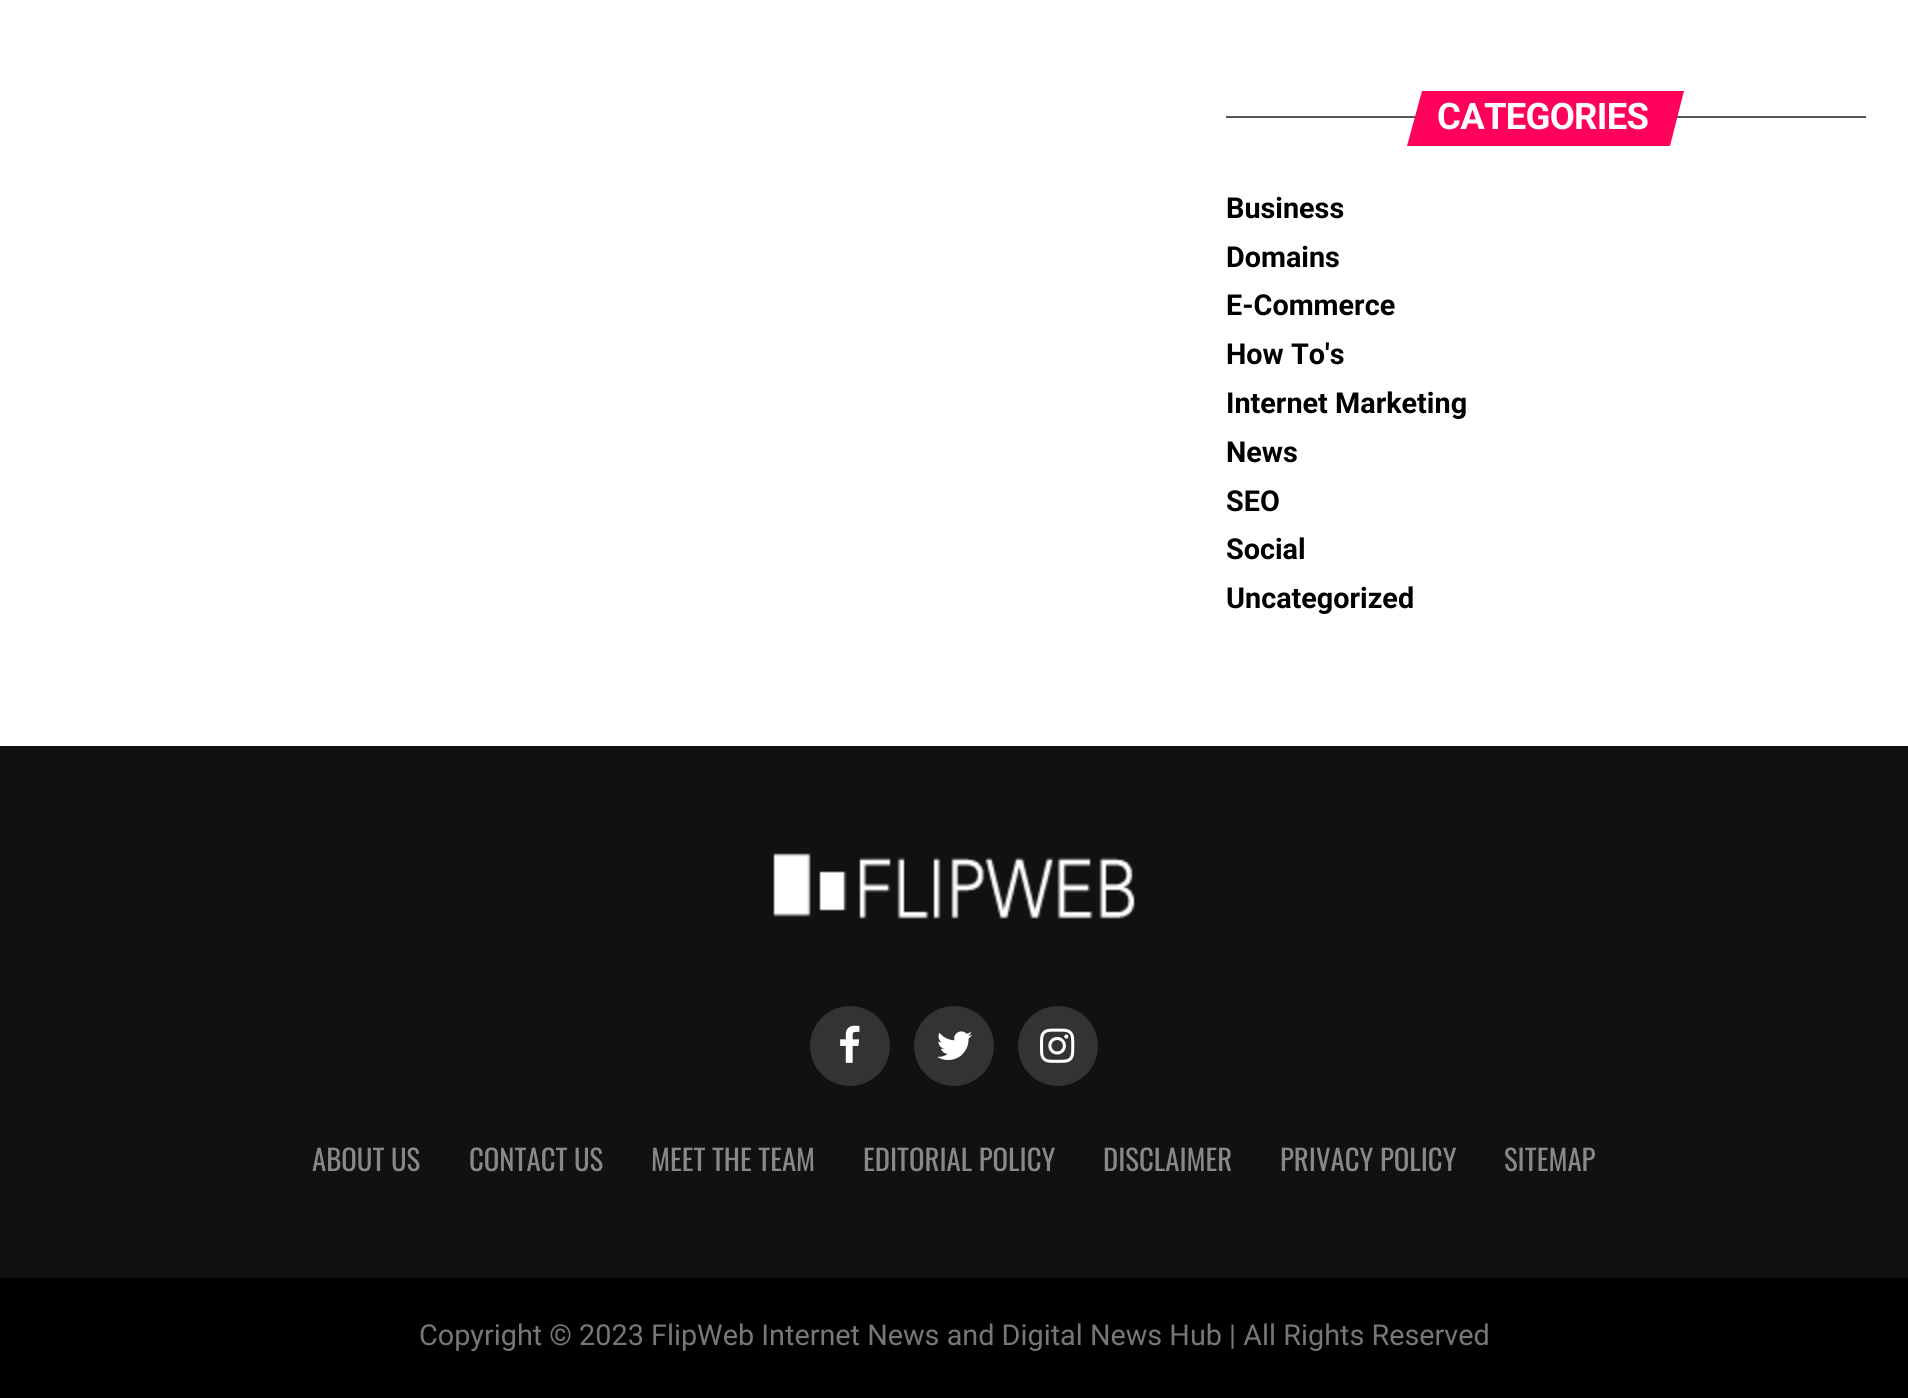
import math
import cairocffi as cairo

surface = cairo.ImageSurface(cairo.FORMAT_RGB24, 1908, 1398)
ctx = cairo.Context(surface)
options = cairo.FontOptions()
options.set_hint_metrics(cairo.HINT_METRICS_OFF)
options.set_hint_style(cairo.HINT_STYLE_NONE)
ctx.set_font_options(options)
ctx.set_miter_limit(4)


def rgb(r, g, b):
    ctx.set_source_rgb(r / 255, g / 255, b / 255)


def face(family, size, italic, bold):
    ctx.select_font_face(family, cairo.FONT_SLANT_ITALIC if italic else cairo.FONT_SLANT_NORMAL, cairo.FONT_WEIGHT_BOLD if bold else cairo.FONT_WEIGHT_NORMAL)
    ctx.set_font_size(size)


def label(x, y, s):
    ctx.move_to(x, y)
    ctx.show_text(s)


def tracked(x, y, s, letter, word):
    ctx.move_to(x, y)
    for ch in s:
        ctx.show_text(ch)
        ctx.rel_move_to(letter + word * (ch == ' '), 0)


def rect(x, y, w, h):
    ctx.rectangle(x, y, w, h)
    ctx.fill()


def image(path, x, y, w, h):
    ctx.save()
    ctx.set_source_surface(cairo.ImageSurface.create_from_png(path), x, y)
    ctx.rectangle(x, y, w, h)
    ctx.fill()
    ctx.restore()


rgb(255, 255, 255)
ctx.paint()
rgb(85, 85, 85)
rect(1226, 116, 640, 2)
rgb(255, 0, 91)
ctx.new_path()
ctx.move_to(1422, 91)
ctx.line_to(1684, 91)
ctx.line_to(1670, 146)
ctx.line_to(1407, 146)
ctx.close_path()
ctx.fill()
face('Roboto', 36.5, 0, 1)
rgb(255, 255, 255)
tracked(1437, 129, 'CATEGORIES', -0.75, 0)
face('Roboto', 28.8, 0, 1)
rgb(0, 0, 0)
label(1226, 218, 'Business')
label(1226, 267, 'Domains')
label(1226, 315, 'E-Commerce')
label(1226, 364, 'How To\'s')
label(1226, 413, 'Internet Marketing')
label(1226, 462, 'News')
label(1226, 511, 'SEO')
label(1226, 559, 'Social')
label(1226, 608, 'Uncategorized')
rgb(17, 17, 17)
rect(0, 746, 1908, 532)
image('image0.png', 773, 853, 362, 66)
rgb(51, 51, 51)
ctx.arc(850, 1046, 40, 0, 2 * math.pi)
ctx.fill()
image('image1.png', 840, 1025, 20, 38)
ctx.arc(954, 1046, 40, 0, 2 * math.pi)
ctx.fill()
image('image2.png', 937, 1031, 35, 29)
ctx.arc(1058, 1046, 40, 0, 2 * math.pi)
ctx.fill()
image('image3.png', 1040, 1028, 35, 35)
face('Oswald', 28.8, 0, 0)
rgb(136, 136, 136)
label(312, 1171, 'ABOUT US')
label(469, 1171, 'CONTACT US')
label(651, 1171, 'MEET THE TEAM')
label(863, 1171, 'EDITORIAL POLICY')
label(1103, 1171, 'DISCLAIMER')
label(1280, 1171, 'PRIVACY POLICY')
label(1504, 1171, 'SITEMAP')
rgb(0, 0, 0)
rect(0, 1278, 1908, 120)
face('Roboto', 28.8, 0, 0)
rgb(119, 119, 119)
label(419, 1345, 'Copyright © 2023 FlipWeb Internet News and Digital News Hub | All Rights Reserved')
surface.write_to_png('render.png')
